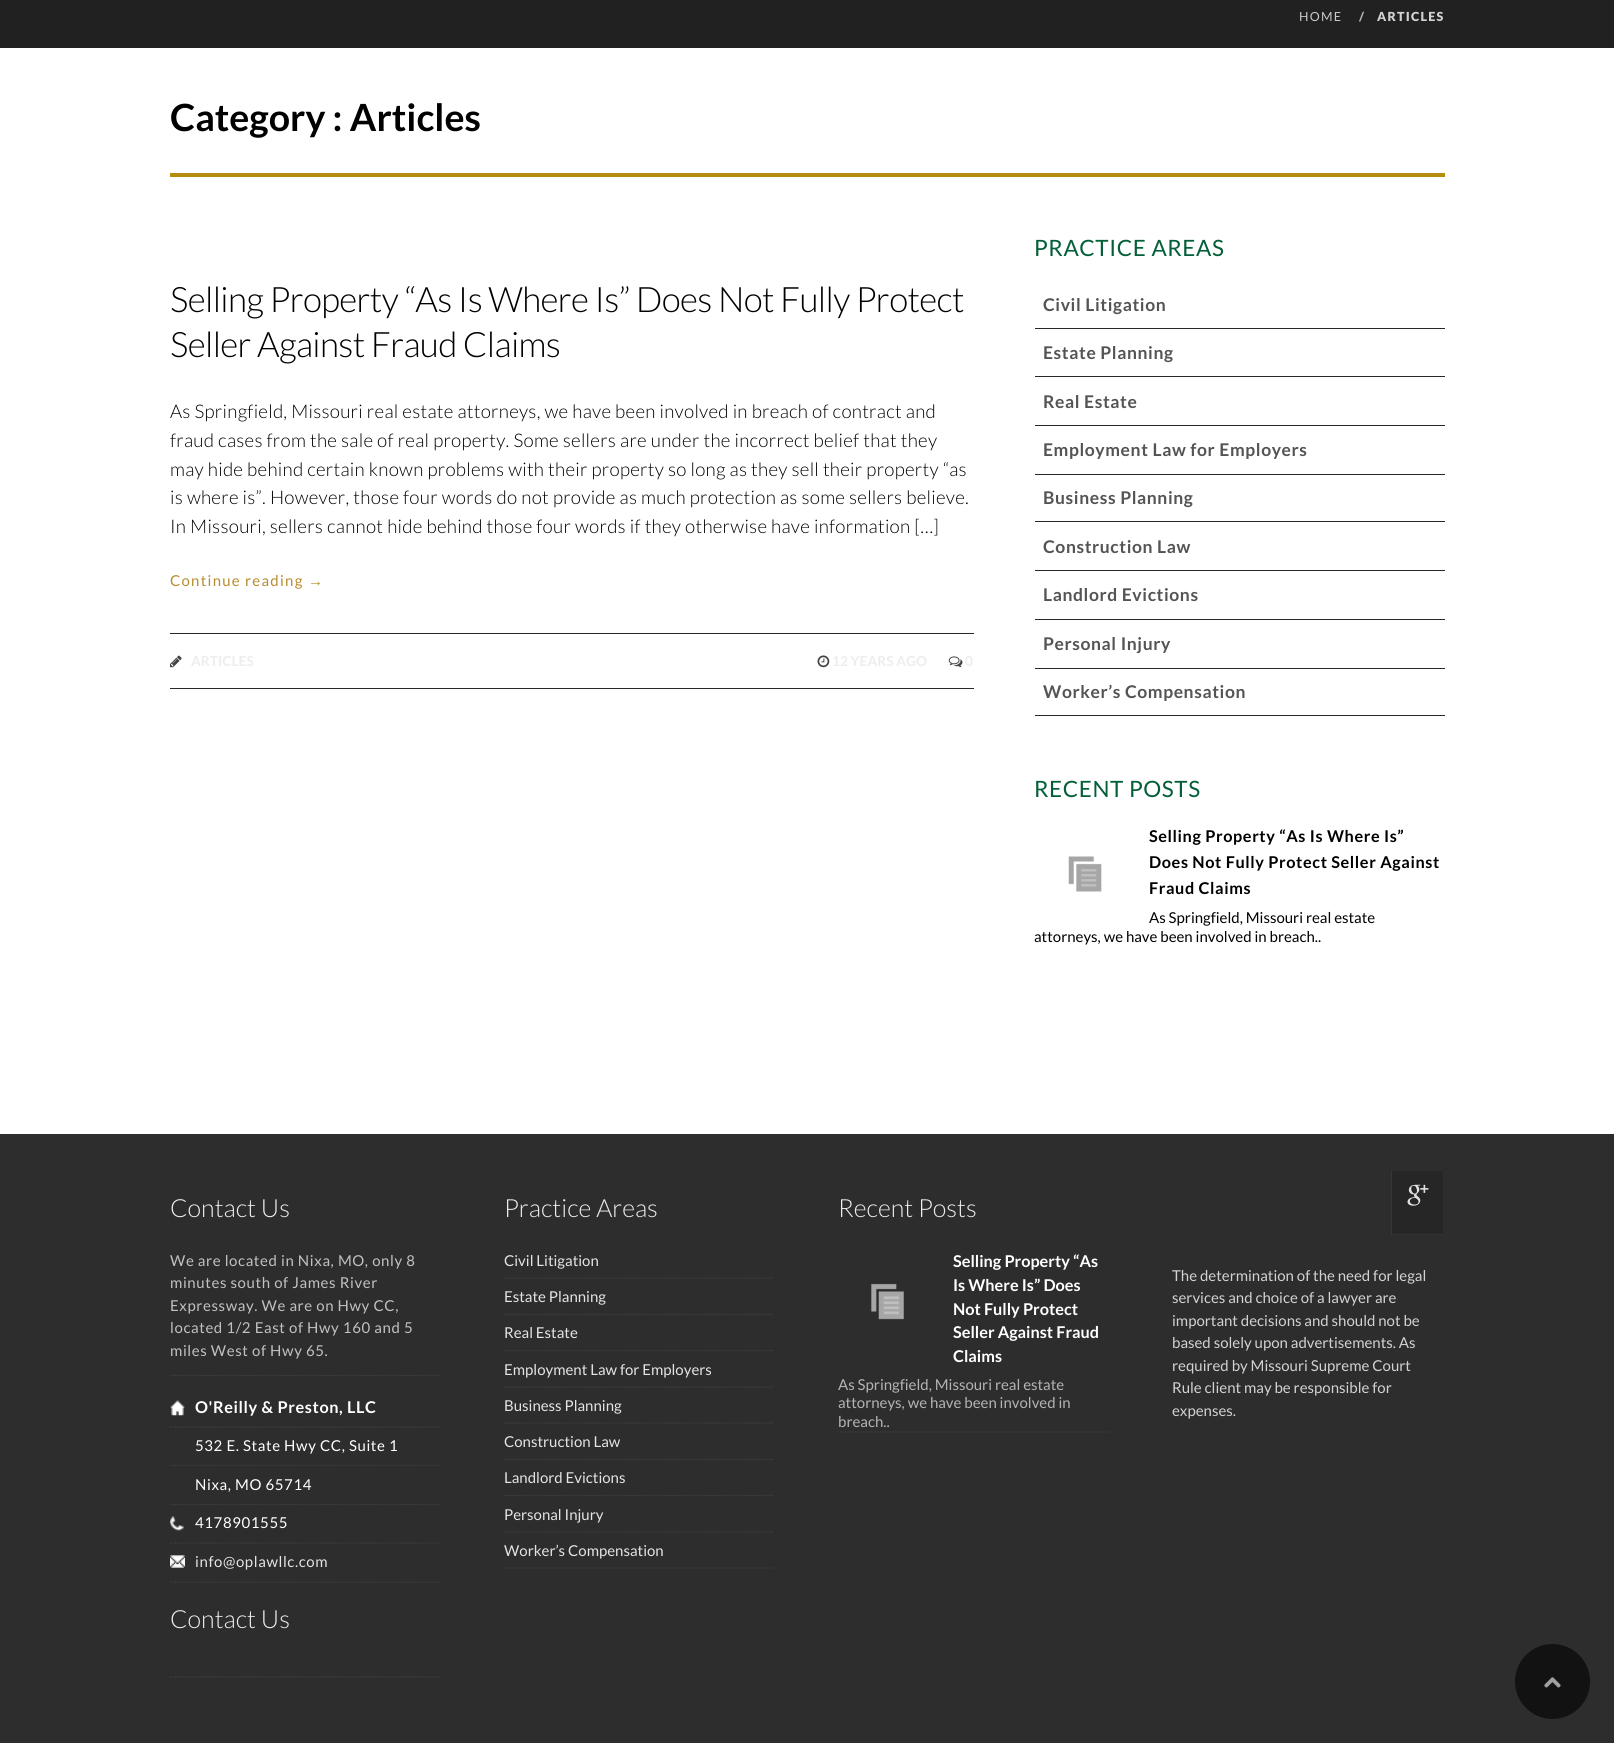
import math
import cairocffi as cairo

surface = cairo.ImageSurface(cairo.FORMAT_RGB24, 1614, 1743)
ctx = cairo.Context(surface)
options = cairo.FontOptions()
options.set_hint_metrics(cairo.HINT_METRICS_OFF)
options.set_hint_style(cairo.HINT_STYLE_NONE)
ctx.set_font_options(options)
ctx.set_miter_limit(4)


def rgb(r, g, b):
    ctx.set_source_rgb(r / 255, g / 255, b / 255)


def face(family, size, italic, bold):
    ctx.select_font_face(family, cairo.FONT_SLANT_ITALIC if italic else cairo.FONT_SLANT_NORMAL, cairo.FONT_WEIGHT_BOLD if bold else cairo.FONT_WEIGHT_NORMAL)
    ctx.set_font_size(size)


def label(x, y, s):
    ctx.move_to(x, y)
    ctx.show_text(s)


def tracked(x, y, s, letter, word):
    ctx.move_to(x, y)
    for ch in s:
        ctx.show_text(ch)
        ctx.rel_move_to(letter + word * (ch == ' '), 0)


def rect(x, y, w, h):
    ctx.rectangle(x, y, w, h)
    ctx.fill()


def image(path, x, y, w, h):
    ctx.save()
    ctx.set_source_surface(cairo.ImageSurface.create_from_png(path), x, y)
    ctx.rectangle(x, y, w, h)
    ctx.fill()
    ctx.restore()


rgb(255, 255, 255)
ctx.paint()
rgb(33, 33, 33)
rect(0, 0, 1614, 48)
face('Lato', 12.5, 0, 0)
rgb(201, 201, 201)
tracked(1299, 21, 'HOME', 1.25, 0)
face('Lato Black', 12.5, 0, 0)
rgb(180, 180, 180)
tracked(1359, 21, '/', 1.25, 0)
rgb(210, 210, 210)
tracked(1377, 21, 'ARTICLES', 1.25, 0)
rgb(182, 140, 14)
rect(170, 173, 1275, 4)
face('Lato', 37.5, 0, 1)
rgb(0, 0, 0)
label(170, 131, 'Category : Articles')
face('Lato Light', 35, 0, 0)
tracked(170, 312, 'Selling Property “As Is Where Is” Does Not Fully Protect', -0.62, 0)
tracked(170, 357, 'Seller Against Fraud Claims', -0.62, 0)
face('Lato Light', 18.75, 0, 0)
tracked(170, 418, 'As Springfield, Missouri real estate attorneys, we have been involved in breach of contract and', 0.25, 0)
tracked(170, 447, 'fraud cases from the sale of real property. Some sellers are under the incorrect belief that they', 0.25, 0)
tracked(170, 476, 'may hide behind certain known problems with their property so long as they sell their property “as', 0.25, 0)
tracked(170, 504, 'is where is”. However, those four words do not provide as much protection as some sellers believe.', 0.25, 0)
tracked(170, 533, 'In Missouri, sellers cannot hide behind those four words if they otherwise have information […]', 0.25, 0)
face('Lato', 15, 0, 0)
rgb(182, 140, 47)
tracked(170, 586, 'Continue reading', 1.25, 0)
face('Liberation Sans', 15, 0, 0)
tracked(308, 586, '→', 1.25, 0)
rgb(40, 40, 40)
rect(170, 633, 804, 1)
rect(170, 688, 804, 1)
image('image0.png', 170, 655, 12, 13)
face('Lato', 13.75, 0, 1)
rgb(237, 237, 237)
label(191, 666, 'ARTICLES')
image('image1.png', 817, 655, 13, 13)
label(832, 666, '12 YEARS AGO')
image('image2.png', 948, 656, 15, 12)
label(965, 666, '0')
face('Lato', 22.5, 0, 0)
rgb(3, 95, 56)
tracked(1034, 256, 'PRACTICE AREAS', 0.6, 0)
rgb(40, 40, 40)
rect(1035, 328, 410, 1)
face('Lato', 17.5, 0, 1)
rgb(84, 84, 84)
tracked(1043, 311, 'Civil Litigation', 0.6, 0)
rgb(40, 40, 40)
rect(1035, 376, 410, 1)
rgb(84, 84, 84)
tracked(1043, 359, 'Estate Planning', 0.6, 0)
rgb(40, 40, 40)
rect(1035, 425, 410, 1)
rgb(84, 84, 84)
tracked(1043, 408, 'Real Estate', 0.6, 0)
rgb(40, 40, 40)
rect(1035, 474, 410, 1)
rgb(84, 84, 84)
tracked(1043, 456, 'Employment Law for Employers', 0.6, 0)
rgb(40, 40, 40)
rect(1035, 521, 410, 1)
rgb(84, 84, 84)
tracked(1043, 504, 'Business Planning', 0.6, 0)
rgb(40, 40, 40)
rect(1035, 570, 410, 1)
rgb(84, 84, 84)
tracked(1043, 553, 'Construction Law', 0.6, 0)
rgb(40, 40, 40)
rect(1035, 619, 410, 1)
rgb(84, 84, 84)
tracked(1043, 601, 'Landlord Evictions', 0.6, 0)
rgb(40, 40, 40)
rect(1035, 668, 410, 1)
rgb(84, 84, 84)
tracked(1043, 650, 'Personal Injury', 0.6, 0)
rgb(40, 40, 40)
rect(1035, 715, 410, 1)
rgb(84, 84, 84)
tracked(1043, 698, 'Worker’s Compensation', 0.6, 0)
face('Lato', 22.5, 0, 0)
rgb(3, 95, 56)
tracked(1034, 797, 'RECENT POSTS', 0.6, 0)
face('Lato', 16.25, 0, 1)
rgb(0, 0, 0)
tracked(1149, 842, 'Selling Property “As Is Where Is”', 0.6, 0)
tracked(1149, 868, 'Does Not Fully Protect Seller Against', 0.6, 0)
tracked(1149, 894, 'Fraud Claims', 0.6, 0)
face('Lato', 15, 0, 0)
label(1149, 923, 'As Springfield, Missouri real estate')
label(1034, 942, 'attorneys, we have been involved in breach..')
image('image3.png', 1068, 856, 34, 36)
rgb(45, 45, 45)
rect(0, 1134, 1614, 609)
face('Lato Light', 25, 0, 0)
rgb(237, 237, 237)
label(170, 1217, 'Contact Us')
ctx.new_path()
ctx.move_to(170, 1375.5)
ctx.line_to(440, 1375.5)
rgb(64, 64, 64)
ctx.set_line_width(1.2)
ctx.set_dash([1.25, 1.25])
ctx.stroke()
face('Lato', 15, 0, 0)
rgb(193, 193, 193)
tracked(170, 1266, 'We are located in Nixa, MO, only 8', 0.6, 0)
tracked(170, 1288, 'minutes south of James River', 0.6, 0)
tracked(170, 1311, 'Expressway. We are on Hwy CC,', 0.6, 0)
tracked(170, 1333, 'located 1/2 East of Hwy 160 and 5', 0.6, 0)
tracked(170, 1356, 'miles West of Hwy 65.', 0.6, 0)
ctx.new_path()
ctx.move_to(170, 1427)
ctx.line_to(440, 1427)
rgb(64, 64, 64)
ctx.stroke()
image('image4.png', 170, 1400, 15, 16)
face('Lato', 16.25, 0, 1)
rgb(255, 255, 255)
tracked(195, 1413, 'O\'Reilly & Preston, LLC', 0.6, 0)
ctx.new_path()
ctx.move_to(170, 1465.5)
ctx.line_to(440, 1465.5)
rgb(64, 64, 64)
ctx.stroke()
face('Lato', 15, 0, 0)
rgb(255, 255, 255)
tracked(195, 1451, '532 E. State Hwy CC, Suite 1', 0.6, 0)
ctx.new_path()
ctx.move_to(170, 1504.5)
ctx.line_to(440, 1504.5)
rgb(64, 64, 64)
ctx.stroke()
rgb(255, 255, 255)
tracked(195, 1490, 'Nixa, MO 65714', 0.6, 0)
ctx.new_path()
ctx.move_to(170, 1543)
ctx.line_to(440, 1543)
rgb(64, 64, 64)
ctx.stroke()
image('image5.png', 170, 1516, 14, 15)
rgb(255, 255, 255)
tracked(195, 1528, '4178901555', 0.6, 0)
ctx.new_path()
ctx.move_to(170, 1582)
ctx.line_to(440, 1582)
rgb(64, 64, 64)
ctx.stroke()
image('image6.png', 170, 1555, 15, 13)
rgb(228, 228, 228)
tracked(195, 1567, 'info@oplawllc.com', 0.6, 0)
face('Lato Light', 25, 0, 0)
rgb(237, 237, 237)
label(170, 1628, 'Contact Us')
ctx.new_path()
ctx.move_to(170, 1677)
ctx.line_to(440, 1677)
rgb(64, 64, 64)
ctx.stroke()
rgb(237, 237, 237)
label(504, 1217, 'Practice Areas')
ctx.new_path()
ctx.move_to(504, 1278)
ctx.line_to(774, 1278)
rgb(64, 64, 64)
ctx.stroke()
face('Lato', 15, 0, 0)
rgb(228, 228, 228)
label(504, 1266, 'Civil Litigation')
ctx.new_path()
ctx.move_to(504, 1314.5)
ctx.line_to(774, 1314.5)
rgb(64, 64, 64)
ctx.stroke()
rgb(228, 228, 228)
label(504, 1302, 'Estate Planning')
ctx.new_path()
ctx.move_to(504, 1350.5)
ctx.line_to(774, 1350.5)
rgb(64, 64, 64)
ctx.stroke()
rgb(228, 228, 228)
label(504, 1338, 'Real Estate')
ctx.new_path()
ctx.move_to(504, 1387)
ctx.line_to(774, 1387)
rgb(64, 64, 64)
ctx.stroke()
rgb(228, 228, 228)
label(504, 1375, 'Employment Law for Employers')
ctx.new_path()
ctx.move_to(504, 1423)
ctx.line_to(774, 1423)
rgb(64, 64, 64)
ctx.stroke()
rgb(228, 228, 228)
label(504, 1411, 'Business Planning')
ctx.new_path()
ctx.move_to(504, 1459.5)
ctx.line_to(774, 1459.5)
rgb(64, 64, 64)
ctx.stroke()
rgb(228, 228, 228)
label(504, 1447, 'Construction Law')
ctx.new_path()
ctx.move_to(504, 1495.5)
ctx.line_to(774, 1495.5)
rgb(64, 64, 64)
ctx.stroke()
rgb(228, 228, 228)
label(504, 1483, 'Landlord Evictions')
ctx.new_path()
ctx.move_to(504, 1532)
ctx.line_to(774, 1532)
rgb(64, 64, 64)
ctx.stroke()
rgb(228, 228, 228)
label(504, 1520, 'Personal Injury')
ctx.new_path()
ctx.move_to(504, 1568)
ctx.line_to(774, 1568)
rgb(64, 64, 64)
ctx.stroke()
rgb(228, 228, 228)
label(504, 1556, 'Worker’s Compensation')
face('Lato Light', 25, 0, 0)
rgb(237, 237, 237)
label(838, 1217, 'Recent Posts')
ctx.new_path()
ctx.move_to(837.5, 1432)
ctx.line_to(1109, 1432)
rgb(64, 64, 64)
ctx.stroke()
face('Lato', 16.25, 0, 1)
rgb(255, 255, 255)
label(953, 1267, 'Selling Property “As')
label(953, 1291, 'Is Where Is” Does')
label(953, 1315, 'Not Fully Protect')
label(953, 1338, 'Seller Against Fraud')
label(953, 1362, 'Claims')
face('Lato', 15, 0, 0)
rgb(180, 180, 180)
label(838, 1390, 'As Springfield, Missouri real estate')
label(838, 1408, 'attorneys, we have been involved in')
label(838, 1427, 'breach..')
image('image7.png', 871, 1283, 33, 37)
rgb(38, 38, 38)
rect(1392, 1171, 51, 64)
ctx.new_path()
ctx.move_to(1391, 1234.5)
ctx.line_to(1442.5, 1234.5)
rgb(64, 64, 64)
ctx.stroke()
rgb(55, 55, 55)
rect(1391, 1171, 1, 64)
image('image8.png', 1407, 1184, 22, 22)
rgb(210, 210, 210)
label(1172, 1281, 'The determination of the need for legal')
label(1172, 1303, 'services and choice of a lawyer are')
label(1172, 1326, 'important decisions and should not be')
label(1172, 1348, 'based solely upon advertisements. As')
label(1172, 1371, 'required by Missouri Supreme Court')
label(1172, 1393, 'Rule client may be responsible for')
label(1172, 1416, 'expenses.')
rgb(18, 18, 18)
ctx.new_path()
ctx.arc(1552.5, 1681.5, 37.5, 0, 2 * math.pi)
ctx.fill()
image('image9.png', 1544, 1677, 17, 11)
surface.write_to_png('render.png')
